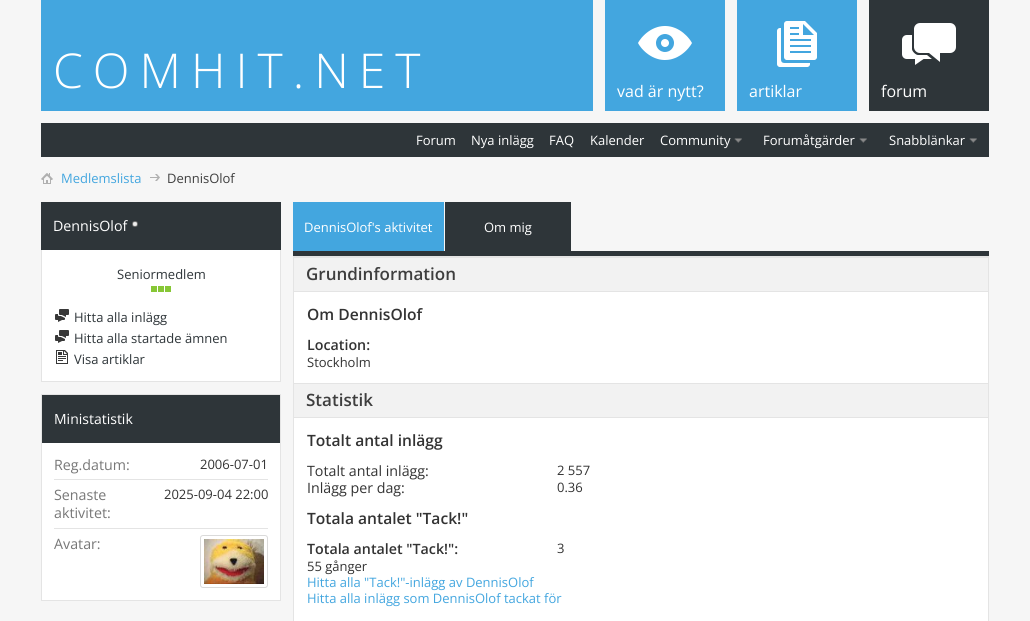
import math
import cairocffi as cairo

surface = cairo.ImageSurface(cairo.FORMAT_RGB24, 1030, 621)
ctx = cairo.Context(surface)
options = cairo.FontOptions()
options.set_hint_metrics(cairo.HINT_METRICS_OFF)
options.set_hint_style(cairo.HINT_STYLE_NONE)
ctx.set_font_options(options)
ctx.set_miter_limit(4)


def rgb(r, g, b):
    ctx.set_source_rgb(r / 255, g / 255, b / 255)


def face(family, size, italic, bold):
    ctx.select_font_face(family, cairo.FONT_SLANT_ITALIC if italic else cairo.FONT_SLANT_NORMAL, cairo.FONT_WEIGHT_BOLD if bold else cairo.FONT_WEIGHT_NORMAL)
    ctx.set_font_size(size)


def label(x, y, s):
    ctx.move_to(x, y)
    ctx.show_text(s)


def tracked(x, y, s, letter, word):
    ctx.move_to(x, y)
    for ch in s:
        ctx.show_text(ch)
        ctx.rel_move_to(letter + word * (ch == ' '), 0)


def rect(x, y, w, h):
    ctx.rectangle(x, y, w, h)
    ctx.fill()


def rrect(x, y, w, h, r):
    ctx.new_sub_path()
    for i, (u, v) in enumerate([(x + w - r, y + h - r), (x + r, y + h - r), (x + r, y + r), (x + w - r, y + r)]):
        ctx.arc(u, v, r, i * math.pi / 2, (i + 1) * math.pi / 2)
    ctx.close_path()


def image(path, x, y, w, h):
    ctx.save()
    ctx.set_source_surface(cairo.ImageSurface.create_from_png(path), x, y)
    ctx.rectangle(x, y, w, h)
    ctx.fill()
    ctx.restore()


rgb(246, 246, 246)
ctx.paint()
rgb(67, 166, 223)
rect(41, 0, 816, 111)
face('Open Sans Light', 48, 0, 0)
rgb(255, 255, 255)
tracked(53, 88, 'COMHIT.NET', 10, 0)
rgb(246, 246, 246)
rect(593, 0, 12, 111)
image('image0.png', 638, 26, 54, 34)
face('Open Sans', 16, 0, 0)
rgb(255, 255, 255)
label(617, 97, 'vad är nytt?')
rgb(246, 246, 246)
rect(725, 0, 12, 111)
image('image1.png', 777, 21, 40, 46)
rgb(255, 255, 255)
label(749, 97, 'artiklar')
rgb(46, 53, 57)
rect(869, 0, 120, 111)
image('image2.png', 902, 23, 54, 42)
rgb(255, 255, 255)
label(881, 97, 'forum')
rgb(46, 53, 57)
rect(41, 123, 948, 34)
face('Open Sans', 13, 0, 0)
rgb(255, 255, 255)
label(416, 145, 'Forum')
label(471, 145, 'Nya inlägg')
label(549, 145, 'FAQ')
label(590, 145, 'Kalender')
label(660, 145, 'Community')
image('image3.png', 734, 138, 8, 5)
label(763, 145, 'Forumåtgärder')
image('image3.png', 859, 138, 8, 5)
label(889, 145, 'Snabblänkar')
image('image3.png', 969, 138, 8, 5)
image('image4.png', 41, 173, 12, 11)
image('image5.png', 150, 174, 10, 7)
rgb(67, 166, 223)
label(61, 183, 'Medlemslista')
rgb(62, 62, 62)
label(167, 183, 'DennisOlof')
rgb(46, 53, 57)
rect(41, 202, 240, 48)
face('Open Sans', 14.25, 0, 0)
rgb(255, 255, 255)
label(53, 231, 'DennisOlof')
image('image6.png', 132, 221, 6, 6)
rect(42, 250, 238, 131)
rgb(228, 228, 228)
rect(280, 250, 1, 132)
rect(41, 381, 240, 1)
rect(41, 250, 1, 132)
face('Open Sans', 13, 0, 0)
rgb(46, 53, 57)
label(117, 279, 'Seniormedlem')
rgb(135, 199, 54)
rect(151, 286, 6, 6)
rect(158, 286, 6, 6)
rect(165, 286, 6, 6)
image('image7.png', 55, 309, 14, 13)
rgb(46, 53, 57)
label(74, 322, 'Hitta alla inlägg')
image('image7.png', 55, 330, 14, 13)
label(74, 343, 'Hitta alla startade ämnen')
image('image8.png', 56, 350, 12, 14)
label(74, 364, 'Visa artiklar')
ctx.rectangle(41.5, 394.5, 239, 206)
rgb(228, 228, 228)
ctx.set_line_width(1)
ctx.stroke()
rgb(46, 53, 57)
rect(42, 395, 238, 48)
face('Open Sans', 14, 0, 0)
rgb(255, 255, 255)
label(54, 424, 'Ministatistik')
rect(42, 443, 238, 157)
rgb(228, 228, 228)
rect(54, 479, 214, 1)
face('Open Sans', 14.25, 0, 0)
rgb(119, 119, 119)
label(54, 470, 'Reg.datum:')
face('Open Sans', 13, 0, 0)
rgb(51, 51, 51)
label(200, 469, '2006-07-01')
rgb(228, 228, 228)
rect(54, 528, 214, 1)
face('Open Sans', 14.25, 0, 0)
rgb(119, 119, 119)
label(54, 500, 'Senaste')
label(54, 518, 'aktivitet:')
face('Open Sans', 13, 0, 0)
rgb(51, 51, 51)
label(164, 499, '2025-09-04 22:00')
face('Open Sans', 14.25, 0, 0)
rgb(119, 119, 119)
label(54, 549, 'Avatar:')
rrect(200.5, 535.5, 67, 52, 2.5)
rgb(218, 218, 218)
ctx.stroke()
image('image9.png', 204, 539, 60, 45)
rgb(67, 166, 223)
rect(294, 203, 149, 48)
rect(293, 202, 151, 1)
rect(443, 202, 1, 49)
rect(293, 202, 1, 49)
face('Open Sans', 13, 0, 0)
rgb(255, 255, 255)
label(304, 232, 'DennisOlof\'s aktivitet')
rgb(46, 53, 57)
rect(446, 203, 124, 48)
rect(445, 202, 126, 1)
rect(570, 202, 1, 49)
rect(445, 202, 1, 49)
rgb(255, 255, 255)
label(484, 232, 'Om mig')
rgb(46, 53, 57)
rect(293, 251, 696, 5)
ctx.rectangle(293.5, 256.5, 695, 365)
rgb(228, 228, 228)
ctx.stroke()
rgb(242, 242, 242)
rect(294, 258, 694, 33)
rgb(228, 228, 228)
rect(294, 257, 694, 1)
rect(294, 291, 694, 1)
face('Open Sans SemiBold', 17, 0, 0)
rgb(62, 62, 62)
label(306, 280, 'Grundinformation')
rgb(255, 255, 255)
rect(294, 292, 694, 91)
face('Open Sans SemiBold', 15.6, 0, 0)
rgb(51, 51, 51)
label(307, 320, 'Om DennisOlof')
face('Open Sans SemiBold', 14.25, 0, 0)
label(307, 350, 'Location:')
face('Open Sans', 13, 0, 0)
label(307, 367, 'Stockholm')
rgb(242, 242, 242)
rect(294, 384, 694, 33)
rgb(228, 228, 228)
rect(294, 383, 694, 1)
rect(294, 417, 694, 1)
face('Open Sans SemiBold', 17, 0, 0)
rgb(62, 62, 62)
label(306, 406, 'Statistik')
rgb(255, 255, 255)
rect(294, 418, 694, 203)
face('Open Sans SemiBold', 15.6, 0, 0)
rgb(51, 51, 51)
label(307, 446, 'Totalt antal inlägg')
face('Open Sans', 14.25, 0, 0)
label(307, 476, 'Totalt antal inlägg:')
face('Open Sans', 13, 0, 0)
label(557, 475, '2 557')
face('Open Sans', 14.25, 0, 0)
label(307, 493, 'Inlägg per dag:')
face('Open Sans', 13, 0, 0)
label(557, 492, '0.36')
face('Open Sans SemiBold', 15.6, 0, 0)
label(307, 524, 'Totala antalet "Tack!"')
face('Open Sans SemiBold', 14.25, 0, 0)
label(307, 554, 'Totala antalet "Tack!":')
face('Open Sans', 13, 0, 0)
label(557, 553, '3')
label(307, 571, '55 gånger')
rgb(67, 166, 223)
label(307, 587, 'Hitta alla "Tack!"-inlägg av DennisOlof')
label(307, 603, 'Hitta alla inlägg som DennisOlof tackat för')
surface.write_to_png('render.png')
